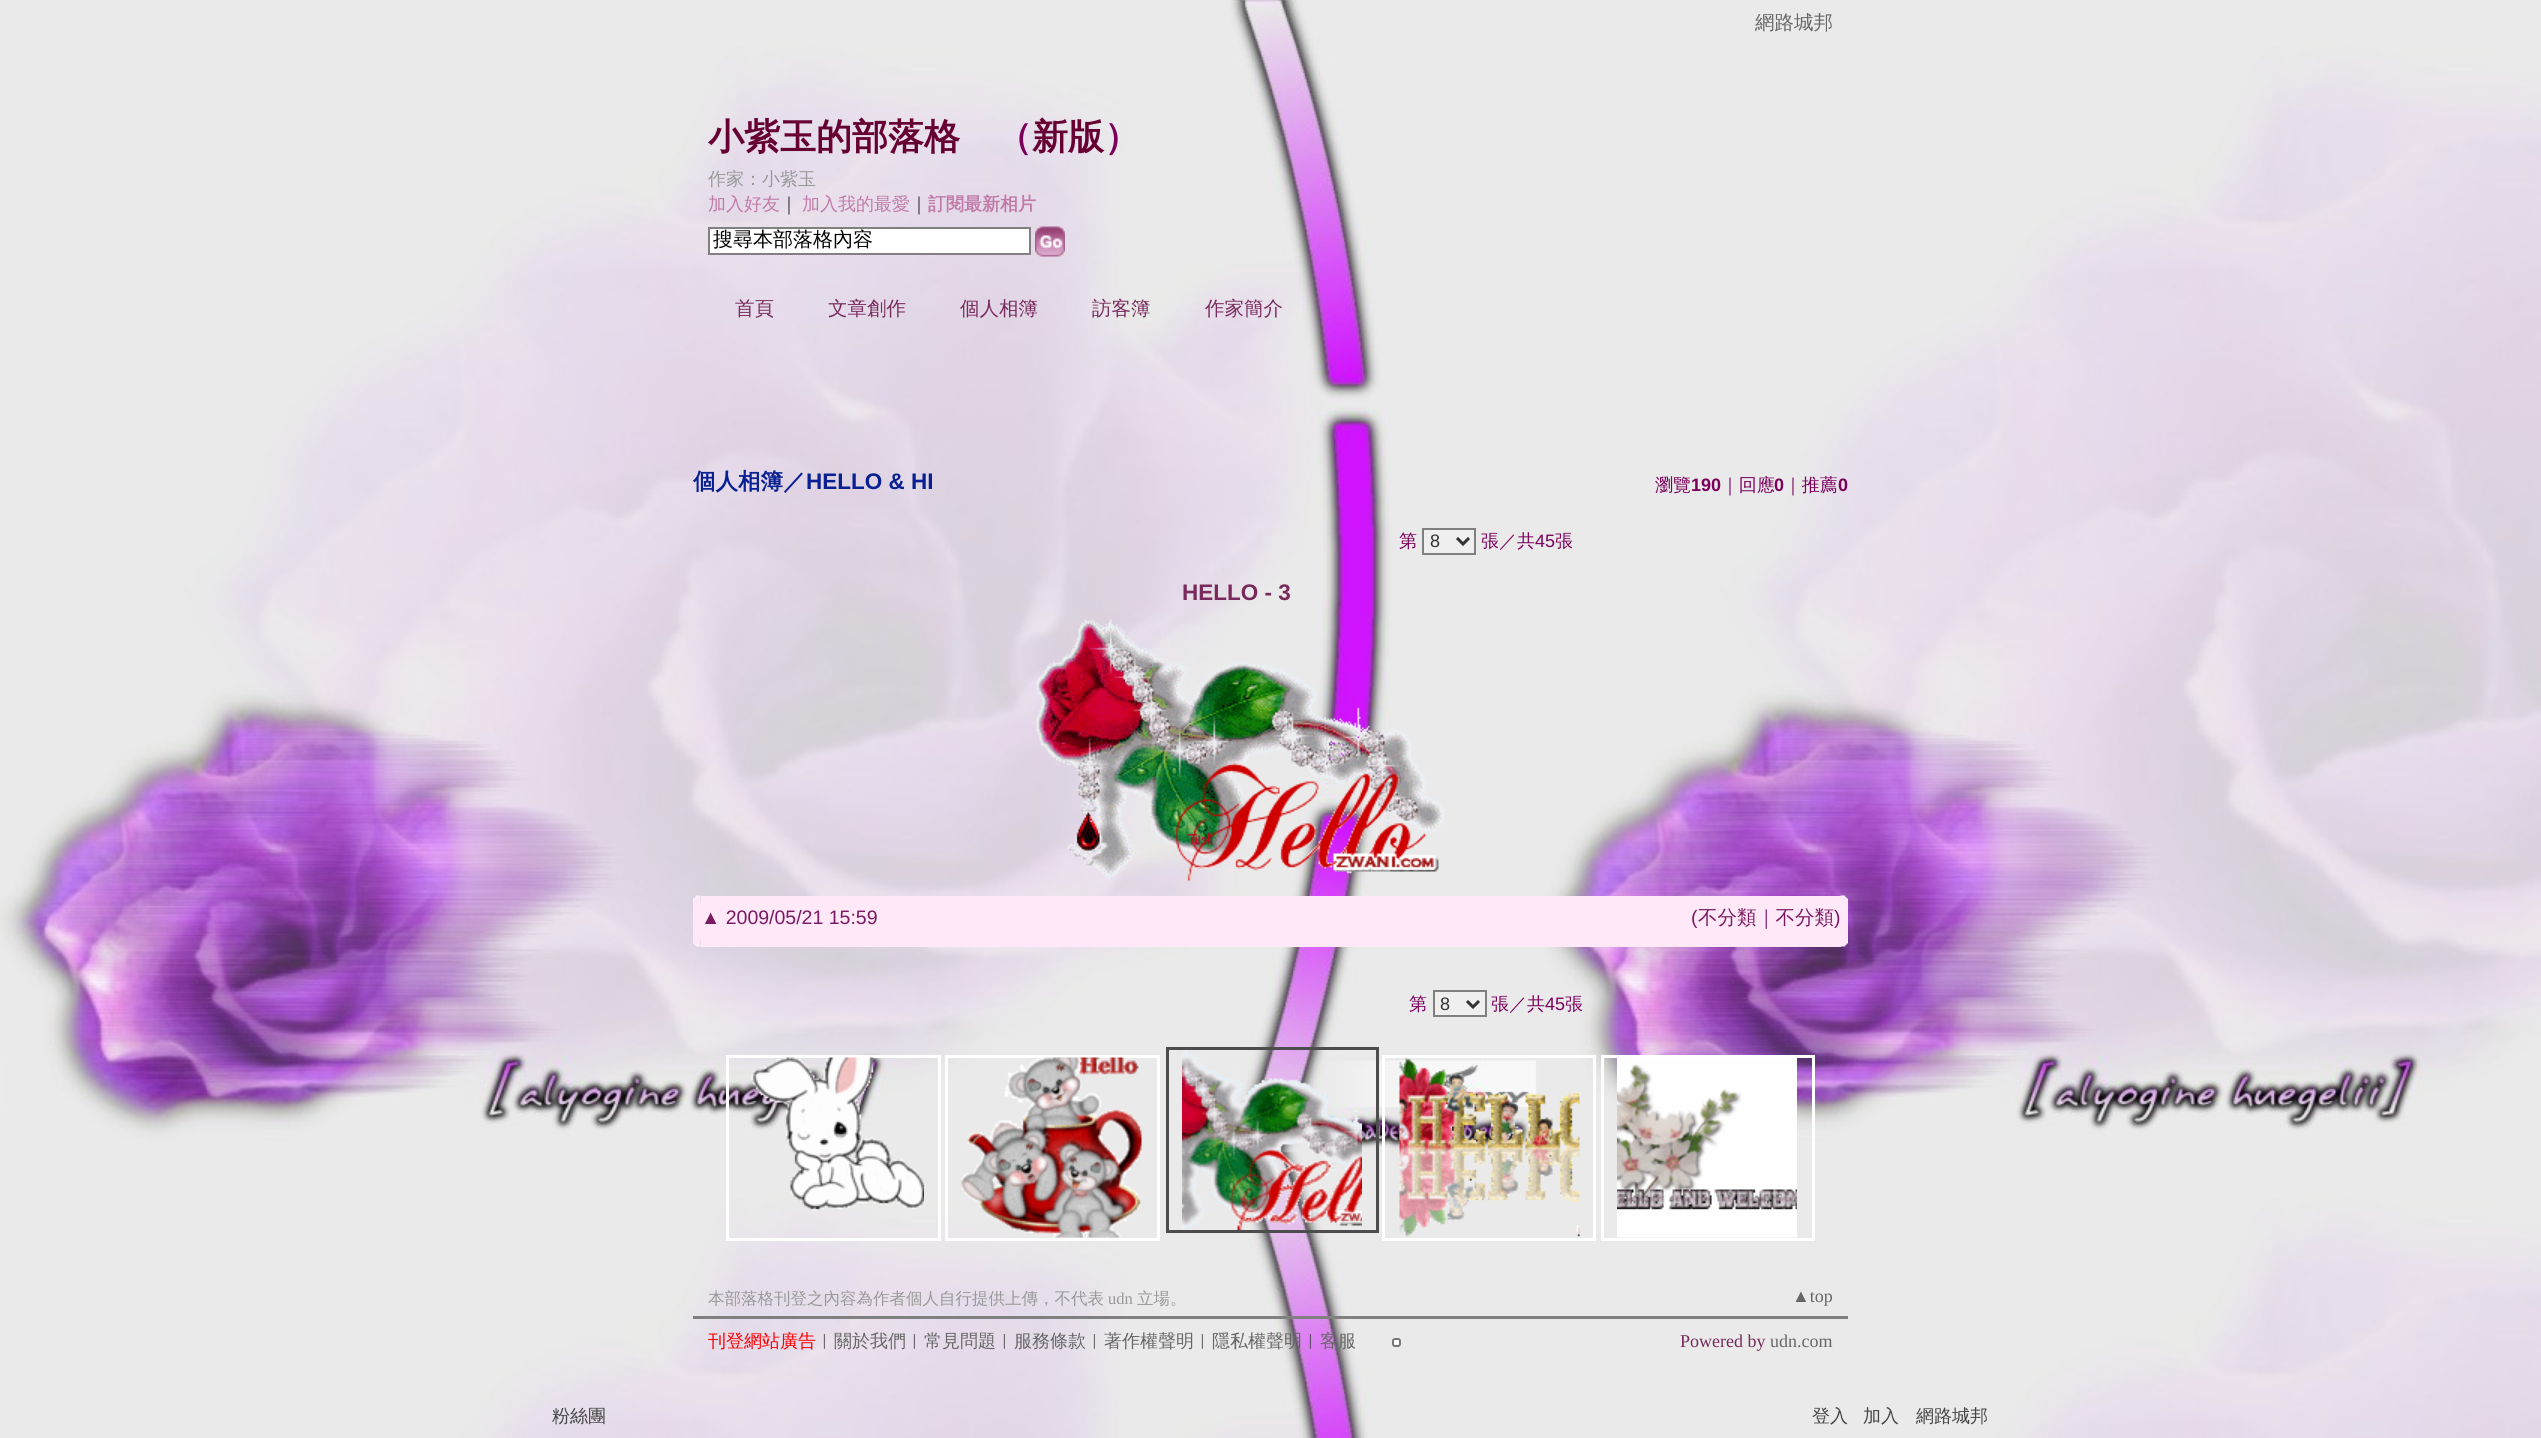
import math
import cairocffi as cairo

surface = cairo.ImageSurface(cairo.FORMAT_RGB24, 2541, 1438)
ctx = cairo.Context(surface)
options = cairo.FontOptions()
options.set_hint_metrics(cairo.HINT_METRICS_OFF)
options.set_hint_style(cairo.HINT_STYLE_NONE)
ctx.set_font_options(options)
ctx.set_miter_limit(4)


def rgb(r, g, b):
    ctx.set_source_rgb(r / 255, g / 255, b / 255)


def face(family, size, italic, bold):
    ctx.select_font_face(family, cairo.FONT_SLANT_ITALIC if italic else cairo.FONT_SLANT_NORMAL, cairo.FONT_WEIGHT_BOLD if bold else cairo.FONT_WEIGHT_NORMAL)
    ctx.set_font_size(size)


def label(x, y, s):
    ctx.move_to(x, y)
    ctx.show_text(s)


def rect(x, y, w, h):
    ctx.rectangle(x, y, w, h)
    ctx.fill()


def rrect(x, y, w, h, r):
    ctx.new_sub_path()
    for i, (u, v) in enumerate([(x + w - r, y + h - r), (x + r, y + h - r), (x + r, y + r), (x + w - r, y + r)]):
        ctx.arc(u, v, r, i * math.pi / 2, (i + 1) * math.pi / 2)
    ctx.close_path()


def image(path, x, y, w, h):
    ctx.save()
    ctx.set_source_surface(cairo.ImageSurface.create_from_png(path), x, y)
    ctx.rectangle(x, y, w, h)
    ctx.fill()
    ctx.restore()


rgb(255, 255, 255)
ctx.paint()
image('image0.png', 0, 0, 2541, 1438)
face('WenQuanYi Zen Hei Medium', 19.5, 0, 0)
rgb(102, 102, 102)
label(1755, 29, '網路城邦')
face('WenQuanYi Zen Hei', 36, 0, 1)
rgb(102, 0, 51)
label(708, 149, '小紫玉的部落格')
rgb(122, 0, 92)
label(996, 149, '（')
rgb(102, 0, 51)
label(1032, 149, '新版')
rgb(122, 0, 92)
label(1104, 149, '）')
face('WenQuanYi Zen Hei Medium', 18, 0, 0)
rgb(153, 153, 153)
label(708, 185, '作家：小紫玉')
rgb(193, 123, 168)
label(708, 210, '加入好友')
rgb(51, 51, 51)
label(780, 210, '｜')
rgb(193, 123, 168)
label(802, 210, '加入我的最愛')
rgb(51, 51, 51)
label(910, 210, '｜')
face('WenQuanYi Zen Hei', 18, 0, 1)
rgb(193, 123, 168)
label(928, 210, '訂閱最新相片')
rgb(255, 255, 255)
ctx.rectangle(709, 228, 321, 26)
ctx.fill_preserve()
rgb(128, 128, 128)
ctx.stroke()
face('WenQuanYi Zen Hei Medium', 20, 0, 0)
rgb(0, 0, 0)
label(713, 246, '搜尋本部落格內容')
image('image1.png', 1035, 226, 30, 31)
face('WenQuanYi Zen Hei Medium', 19.5, 0, 0)
rgb(119, 42, 91)
label(735, 315, '首頁')
label(828, 315, '文章創作')
label(960, 315, '個人相簿')
label(1092, 315, '訪客簿')
label(1205, 315, '作家簡介')
face('WenQuanYi Zen Hei', 22.5, 0, 1)
rgb(9, 32, 147)
label(693, 489, '個人相簿／')
face('Liberation Sans', 22.5, 0, 1)
label(806, 489, 'HELLO & HI')
face('WenQuanYi Zen Hei Medium', 18, 0, 0)
rgb(122, 0, 92)
label(1655, 491, '瀏覽')
face('Liberation Sans', 18, 0, 1)
label(1691, 491, '190')
face('WenQuanYi Zen Hei Medium', 18, 0, 0)
label(1721, 491, '｜回應')
face('Liberation Sans', 18, 0, 1)
label(1774, 491, '0')
face('WenQuanYi Zen Hei Medium', 18, 0, 0)
label(1784, 491, '｜推薦')
face('Liberation Sans', 18, 0, 1)
label(1838, 491, '0')
face('WenQuanYi Zen Hei Medium', 18, 0, 0)
label(1399, 547, '第')
rgb(239, 239, 239)
ctx.rectangle(1423, 529, 52, 25)
ctx.fill_preserve()
rgb(128, 128, 128)
ctx.stroke()
ctx.new_path()
ctx.move_to(1457, 538)
ctx.line_to(1463, 544)
ctx.line_to(1469, 538)
rgb(51, 51, 51)
ctx.set_line_width(3)
ctx.stroke()
face('Liberation Sans', 18, 0, 0)
label(1430, 547, '8')
face('WenQuanYi Zen Hei Medium', 18, 0, 0)
rgb(122, 0, 92)
label(1481, 547, '張／共')
face('Liberation Sans', 18, 0, 0)
label(1535, 547, '45')
face('WenQuanYi Zen Hei Medium', 18, 0, 0)
label(1555, 547, '張')
face('Liberation Sans', 22.5, 0, 1)
rgb(119, 42, 91)
label(1182, 600, 'HELLO - 3')
image('image2.png', 1036, 619, 410, 262)
image('image3.png', 693, 895, 8, 8)
rgb(255, 232, 247)
rect(701, 896, 1140, 7)
image('image4.png', 1840, 895, 8, 8)
rect(693, 903, 1155, 36)
face('Liberation Sans', 19.5, 0, 0)
rgb(122, 26, 98)
label(701, 924, '▲ 2009/05/21 15:59')
label(1691, 924, '(')
face('WenQuanYi Zen Hei Medium', 19.5, 0, 0)
label(1698, 924, '不分類｜不分類')
face('Liberation Sans', 19.5, 0, 0)
label(1834, 924, ')')
image('image5.png', 693, 939, 8, 8)
rgb(255, 232, 247)
rect(701, 939, 1140, 8)
image('image6.png', 1841, 939, 7, 8)
face('WenQuanYi Zen Hei Medium', 18, 0, 0)
rgb(122, 0, 92)
label(1409, 1010, '第')
rgb(239, 239, 239)
ctx.rectangle(1434, 991, 52, 25)
ctx.fill_preserve()
rgb(128, 128, 128)
ctx.set_line_width(2)
ctx.stroke()
ctx.new_path()
ctx.move_to(1467, 1001)
ctx.line_to(1473, 1007)
ctx.line_to(1479, 1001)
rgb(51, 51, 51)
ctx.set_line_width(3)
ctx.stroke()
face('Liberation Sans', 18, 0, 0)
label(1440, 1010, '8')
face('WenQuanYi Zen Hei Medium', 18, 0, 0)
rgb(122, 0, 92)
label(1491, 1010, '張／共')
face('Liberation Sans', 18, 0, 0)
label(1545, 1010, '45')
face('WenQuanYi Zen Hei Medium', 18, 0, 0)
label(1565, 1010, '張')
ctx.rectangle(727.5, 1056.5, 212, 183)
rgb(255, 255, 255)
ctx.stroke()
image('image7.png', 751, 1057, 173, 154)
ctx.rectangle(946.5, 1056.5, 212, 183)
ctx.stroke()
image('image8.png', 961, 1057, 181, 181)
ctx.rectangle(1167.5, 1048.5, 210, 183)
rgb(77, 77, 77)
ctx.stroke()
image('image9.png', 1182, 1050, 180, 180)
ctx.rectangle(1383.5, 1056.5, 211, 183)
rgb(255, 255, 255)
ctx.stroke()
image('image10.png', 1399, 1057, 181, 180)
ctx.rectangle(1602.5, 1056.5, 211, 183)
ctx.stroke()
image('image11.png', 1617, 1058, 180, 180)
rgb(128, 128, 128)
rect(693, 1316, 1155, 3)
face('WenQuanYi Zen Hei Medium', 16.5, 0, 0)
rgb(153, 153, 153)
label(708, 1304, '本部落格刊登之內容為作者個人自行提供上傳，不代表')
face('Liberation Serif', 16.5, 0, 0)
label(1108, 1304, 'udn')
face('WenQuanYi Zen Hei Medium', 16.5, 0, 0)
label(1137, 1304, '立場。')
face('Liberation Serif', 18, 0, 0)
rgb(102, 102, 102)
label(1792, 1302, '▲top')
face('WenQuanYi Zen Hei Medium', 18, 0, 0)
rgb(255, 0, 0)
label(708, 1347, '刊登網站廣告')
rgb(51, 51, 51)
label(816, 1347, '︱')
rgb(102, 102, 102)
label(834, 1347, '關於我們')
rgb(51, 51, 51)
label(906, 1347, '︱')
rgb(102, 102, 102)
label(924, 1347, '常見問題')
rgb(51, 51, 51)
label(996, 1347, '︱')
rgb(102, 102, 102)
label(1014, 1347, '服務條款')
rgb(51, 51, 51)
label(1086, 1347, '︱')
rgb(102, 102, 102)
label(1104, 1347, '著作權聲明')
rgb(51, 51, 51)
label(1194, 1347, '︱')
rgb(102, 102, 102)
label(1212, 1347, '隱私權聲明')
rgb(51, 51, 51)
label(1302, 1347, '︱')
rgb(102, 102, 102)
label(1320, 1347, '客服')
rgb(255, 255, 255)
rrect(1393, 1339, 7, 7, 2)
ctx.fill_preserve()
rgb(118, 118, 118)
ctx.set_line_width(2)
ctx.stroke()
face('Liberation Serif', 18, 0, 0)
rgb(119, 42, 91)
label(1680, 1347, 'Powered by')
rgb(102, 102, 102)
label(1770, 1347, 'udn.com')
face('WenQuanYi Zen Hei Medium', 18, 0, 0)
rgb(68, 68, 68)
label(552, 1422, '粉絲團')
label(1812, 1422, '登入')
label(1863, 1422, '加入')
label(1916, 1422, '網路城邦')
surface.write_to_png('render.png')
